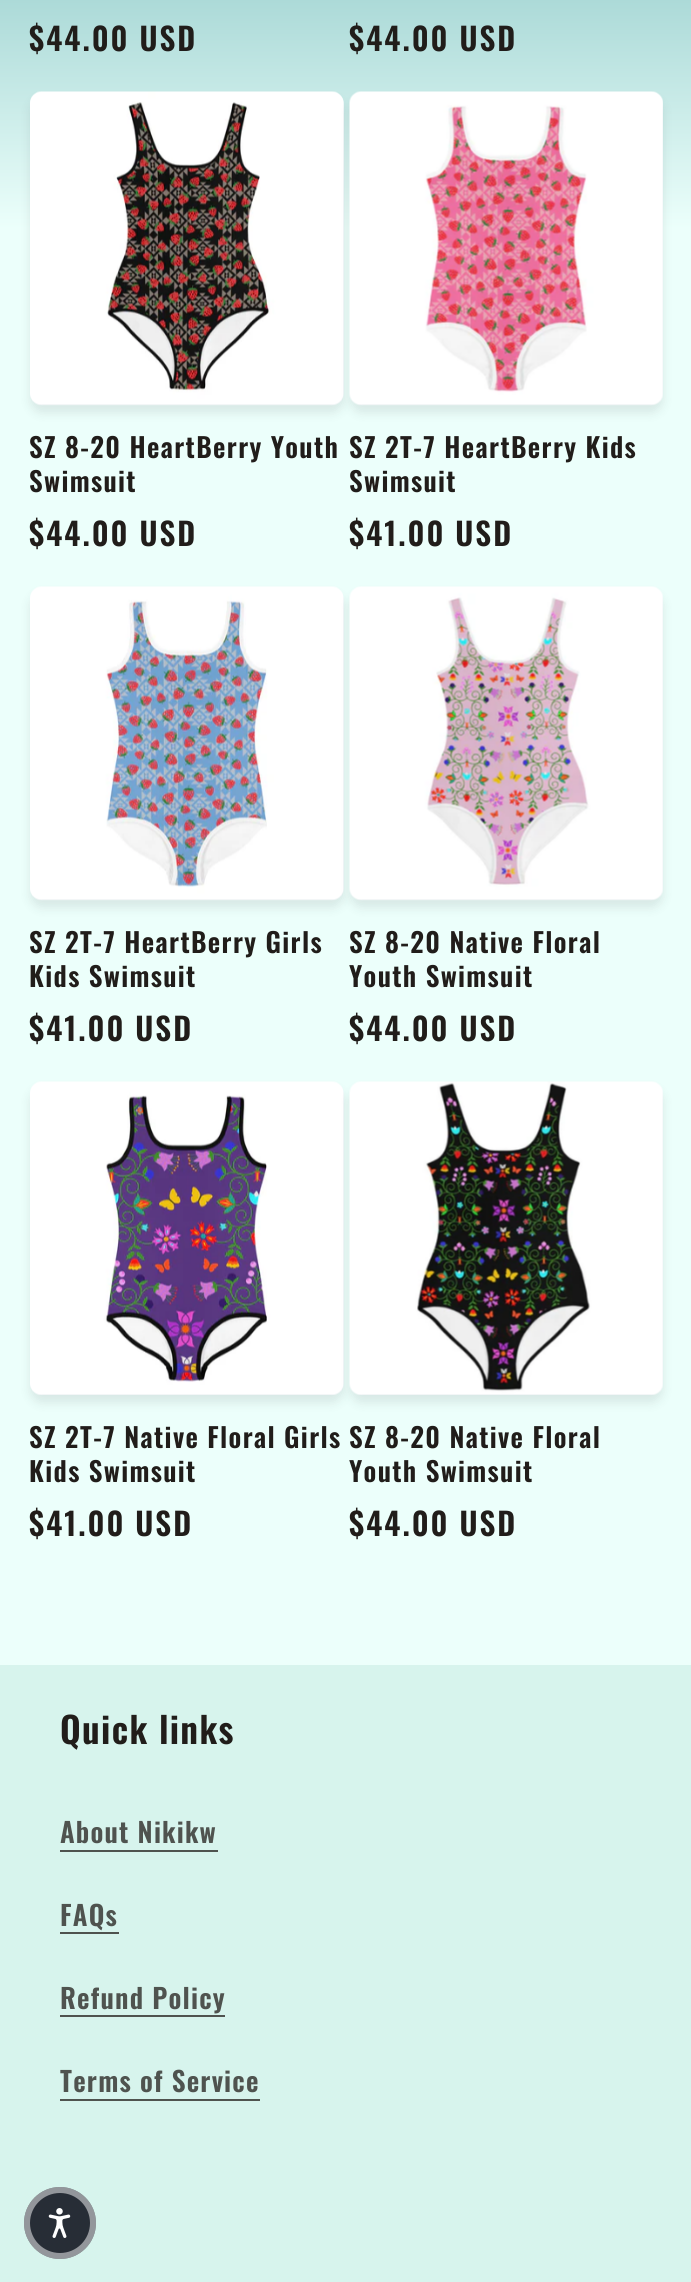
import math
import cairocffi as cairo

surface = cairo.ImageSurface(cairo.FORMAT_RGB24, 691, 2282)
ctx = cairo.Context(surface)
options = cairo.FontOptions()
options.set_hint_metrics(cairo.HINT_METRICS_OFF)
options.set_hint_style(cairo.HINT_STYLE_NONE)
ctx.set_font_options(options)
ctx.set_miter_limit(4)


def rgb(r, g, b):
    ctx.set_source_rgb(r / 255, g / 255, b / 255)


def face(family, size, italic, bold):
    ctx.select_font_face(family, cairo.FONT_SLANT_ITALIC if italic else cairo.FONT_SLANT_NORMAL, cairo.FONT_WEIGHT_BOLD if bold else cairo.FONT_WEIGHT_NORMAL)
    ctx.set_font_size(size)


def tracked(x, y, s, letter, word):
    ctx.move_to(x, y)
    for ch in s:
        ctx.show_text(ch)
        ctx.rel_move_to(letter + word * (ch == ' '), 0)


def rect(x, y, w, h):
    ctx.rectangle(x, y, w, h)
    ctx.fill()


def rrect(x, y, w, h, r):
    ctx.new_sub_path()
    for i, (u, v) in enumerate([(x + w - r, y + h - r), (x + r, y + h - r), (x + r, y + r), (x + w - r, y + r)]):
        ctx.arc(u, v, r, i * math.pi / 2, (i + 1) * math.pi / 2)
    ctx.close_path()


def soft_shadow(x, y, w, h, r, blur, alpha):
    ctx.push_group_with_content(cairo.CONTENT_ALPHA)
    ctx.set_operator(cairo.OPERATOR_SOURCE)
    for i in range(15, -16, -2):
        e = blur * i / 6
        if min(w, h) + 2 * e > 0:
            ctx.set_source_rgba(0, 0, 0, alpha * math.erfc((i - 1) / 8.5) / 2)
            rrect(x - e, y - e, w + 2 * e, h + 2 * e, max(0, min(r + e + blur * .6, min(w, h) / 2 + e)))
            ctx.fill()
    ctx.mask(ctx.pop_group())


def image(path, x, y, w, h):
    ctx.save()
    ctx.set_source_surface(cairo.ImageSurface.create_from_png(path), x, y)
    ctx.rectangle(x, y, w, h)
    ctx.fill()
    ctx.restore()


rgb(255, 255, 255)
ctx.paint()
gradient = cairo.LinearGradient(346, 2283, 346, 0)
gradient.add_color_stop_rgba(0.9, 0.925, 1, 0.984, 1)
gradient.add_color_stop_rgba(1, 0.675, 0.855, 0.847, 1)
ctx.set_source(gradient)
rect(0, 0, 691, 1665)
face('Oswald SemiBold', 31.25, 0, 0)
rgb(33, 29, 26)
tracked(29, 51, '$44.00 USD', 2, 0)
tracked(349, 51, '$44.00 USD', 2, 0)
rgb(244, 253, 255)
rrect(30, 92, 314, 313, 12)
ctx.fill()
rgb(31, 35, 41)
soft_shadow(30, 99, 314, 314, 12, 5, 0.1)
image('image0.png', 30, 91, 314, 315)
face('Oswald SemiBold', 27, 0, 0)
rgb(33, 29, 26)
tracked(29, 458, 'SZ 8-20 HeartBerry Youth', 1.35, 0)
tracked(29, 492, 'Swimsuit', 1.35, 0)
face('Oswald SemiBold', 31.25, 0, 0)
tracked(29, 546, '$44.00 USD', 2, 0)
rgb(244, 253, 255)
rrect(350, 92, 313, 313, 12)
ctx.fill()
rgb(31, 35, 41)
soft_shadow(350, 99, 313, 314, 12, 5, 0.1)
image('image1.png', 349, 91, 314, 315)
face('Oswald SemiBold', 27, 0, 0)
rgb(33, 29, 26)
tracked(349, 458, 'SZ 2T-7 HeartBerry Kids', 1.35, 0)
tracked(349, 492, 'Swimsuit', 1.35, 0)
face('Oswald SemiBold', 31.25, 0, 0)
tracked(349, 546, '$41.00 USD', 2, 0)
rgb(244, 253, 255)
rrect(30, 587, 314, 313, 12)
ctx.fill()
rgb(31, 35, 41)
soft_shadow(30, 594, 314, 314, 12, 5, 0.1)
image('image2.png', 30, 586, 314, 315)
face('Oswald SemiBold', 27, 0, 0)
rgb(33, 29, 26)
tracked(29, 953, 'SZ 2T-7 HeartBerry Girls', 1.35, 0)
tracked(29, 987, 'Kids Swimsuit', 1.35, 0)
face('Oswald SemiBold', 31.25, 0, 0)
tracked(29, 1041, '$41.00 USD', 2, 0)
rgb(244, 253, 255)
rrect(350, 587, 313, 313, 12)
ctx.fill()
rgb(31, 35, 41)
soft_shadow(350, 594, 313, 314, 12, 5, 0.1)
image('image3.png', 349, 586, 314, 315)
face('Oswald SemiBold', 27, 0, 0)
rgb(33, 29, 26)
tracked(349, 953, 'SZ 8-20 Native Floral', 1.35, 0)
tracked(349, 987, 'Youth Swimsuit', 1.35, 0)
face('Oswald SemiBold', 31.25, 0, 0)
tracked(349, 1041, '$44.00 USD', 2, 0)
rgb(244, 253, 255)
rrect(30, 1082, 314, 313, 12)
ctx.fill()
rgb(31, 35, 41)
soft_shadow(30, 1089, 314, 314, 12, 5, 0.1)
image('image4.png', 30, 1081, 314, 314)
face('Oswald SemiBold', 27, 0, 0)
rgb(33, 29, 26)
tracked(29, 1448, 'SZ 2T-7 Native Floral Girls', 1.35, 0)
tracked(29, 1482, 'Kids Swimsuit', 1.35, 0)
face('Oswald SemiBold', 31.25, 0, 0)
tracked(29, 1536, '$41.00 USD', 2, 0)
rgb(244, 253, 255)
rrect(350, 1082, 313, 313, 12)
ctx.fill()
rgb(31, 35, 41)
soft_shadow(350, 1089, 313, 314, 12, 5, 0.1)
image('image5.png', 349, 1081, 314, 314)
face('Oswald SemiBold', 27, 0, 0)
rgb(33, 29, 26)
tracked(349, 1448, 'SZ 8-20 Native Floral', 1.35, 0)
tracked(349, 1482, 'Youth Swimsuit', 1.35, 0)
face('Oswald SemiBold', 31.25, 0, 0)
tracked(349, 1536, '$44.00 USD', 2, 0)
rgb(215, 244, 237)
rect(0, 1665, 691, 617)
face('Oswald SemiBold', 36, 0, 0)
rgb(33, 29, 26)
tracked(60, 1744, 'Quick links', 1.35, 0)
face('Oswald SemiBold', 27.25, 0, 0)
rgb(79, 83, 79)
tracked(60, 1843, 'About Nikikw', 1.2, 0)
rect(60, 1850, 158, 2)
tracked(60, 1926, 'FAQs', 1.2, 0)
rect(60, 1932, 59, 2)
tracked(60, 2009, 'Refund Policy', 1.2, 0)
rect(60, 2015, 165, 2)
tracked(60, 2092, 'Terms of Service', 1.2, 0)
rect(60, 2099, 200, 2)
rgb(39, 45, 54)
ctx.new_path()
ctx.arc(60, 2223, 36, 0, 2 * math.pi)
ctx.fill()
ctx.arc(60, 2223, 33, 0, 2 * math.pi)
ctx.set_source_rgba(1, 1, 1, 0.5)
ctx.set_line_width(6)
ctx.stroke()
image('image6.png', 48, 2208, 23, 30)
surface.write_to_png('render.png')
